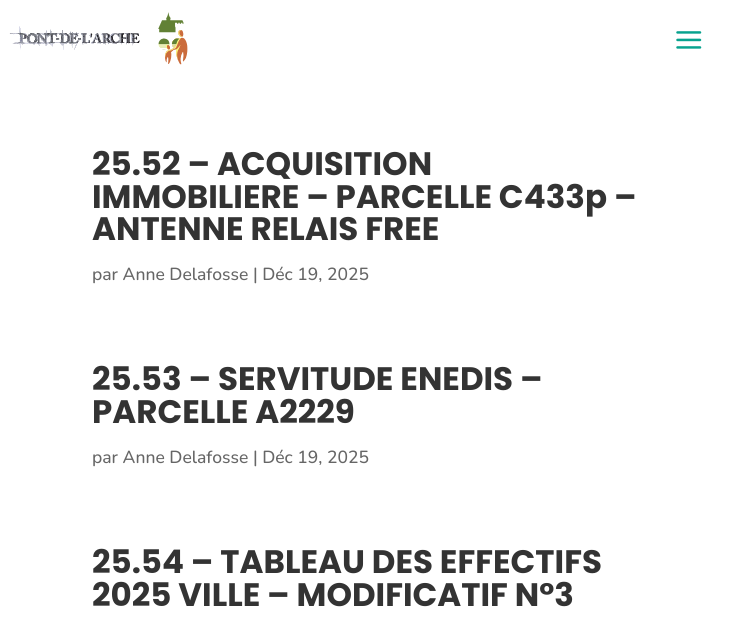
import math
import cairocffi as cairo

surface = cairo.ImageSurface(cairo.FORMAT_RGB24, 734, 635)
ctx = cairo.Context(surface)
options = cairo.FontOptions()
options.set_hint_metrics(cairo.HINT_METRICS_OFF)
options.set_hint_style(cairo.HINT_STYLE_NONE)
ctx.set_font_options(options)
ctx.set_miter_limit(4)


def rgb(r, g, b):
    ctx.set_source_rgb(r / 255, g / 255, b / 255)


def face(family, size, italic, bold):
    ctx.select_font_face(family, cairo.FONT_SLANT_ITALIC if italic else cairo.FONT_SLANT_NORMAL, cairo.FONT_WEIGHT_BOLD if bold else cairo.FONT_WEIGHT_NORMAL)
    ctx.set_font_size(size)


def label(x, y, s):
    ctx.move_to(x, y)
    ctx.show_text(s)


def image(path, x, y, w, h):
    ctx.save()
    ctx.set_source_surface(cairo.ImageSurface.create_from_png(path), x, y)
    ctx.rectangle(x, y, w, h)
    ctx.fill()
    ctx.restore()


rgb(255, 255, 255)
ctx.paint()
image('image0.png', 9, 12, 179, 53)
image('image1.png', 676, 31, 26, 18)
face('Poppins', 32.5, 0, 1)
rgb(51, 51, 51)
label(92, 175, '25.52 – ACQUISITION')
label(92, 208, 'IMMOBILIERE – PARCELLE C433p –')
label(92, 240, 'ANTENNE RELAIS FREE')
face('Nunito Medium', 17.5, 0, 0)
rgb(102, 102, 102)
label(92, 280, 'par Anne Delafosse | Déc 19, 2025')
face('Poppins', 32.5, 0, 1)
rgb(51, 51, 51)
label(92, 390, '25.53 – SERVITUDE ENEDIS –')
label(92, 423, 'PARCELLE A2229')
face('Nunito Medium', 17.5, 0, 0)
rgb(102, 102, 102)
label(92, 463, 'par Anne Delafosse | Déc 19, 2025')
face('Poppins', 32.5, 0, 1)
rgb(51, 51, 51)
label(92, 573, '25.54 – TABLEAU DES EFFECTIFS')
label(92, 606, '2025 VILLE – MODIFICATIF N°3')
surface.write_to_png('render.png')
